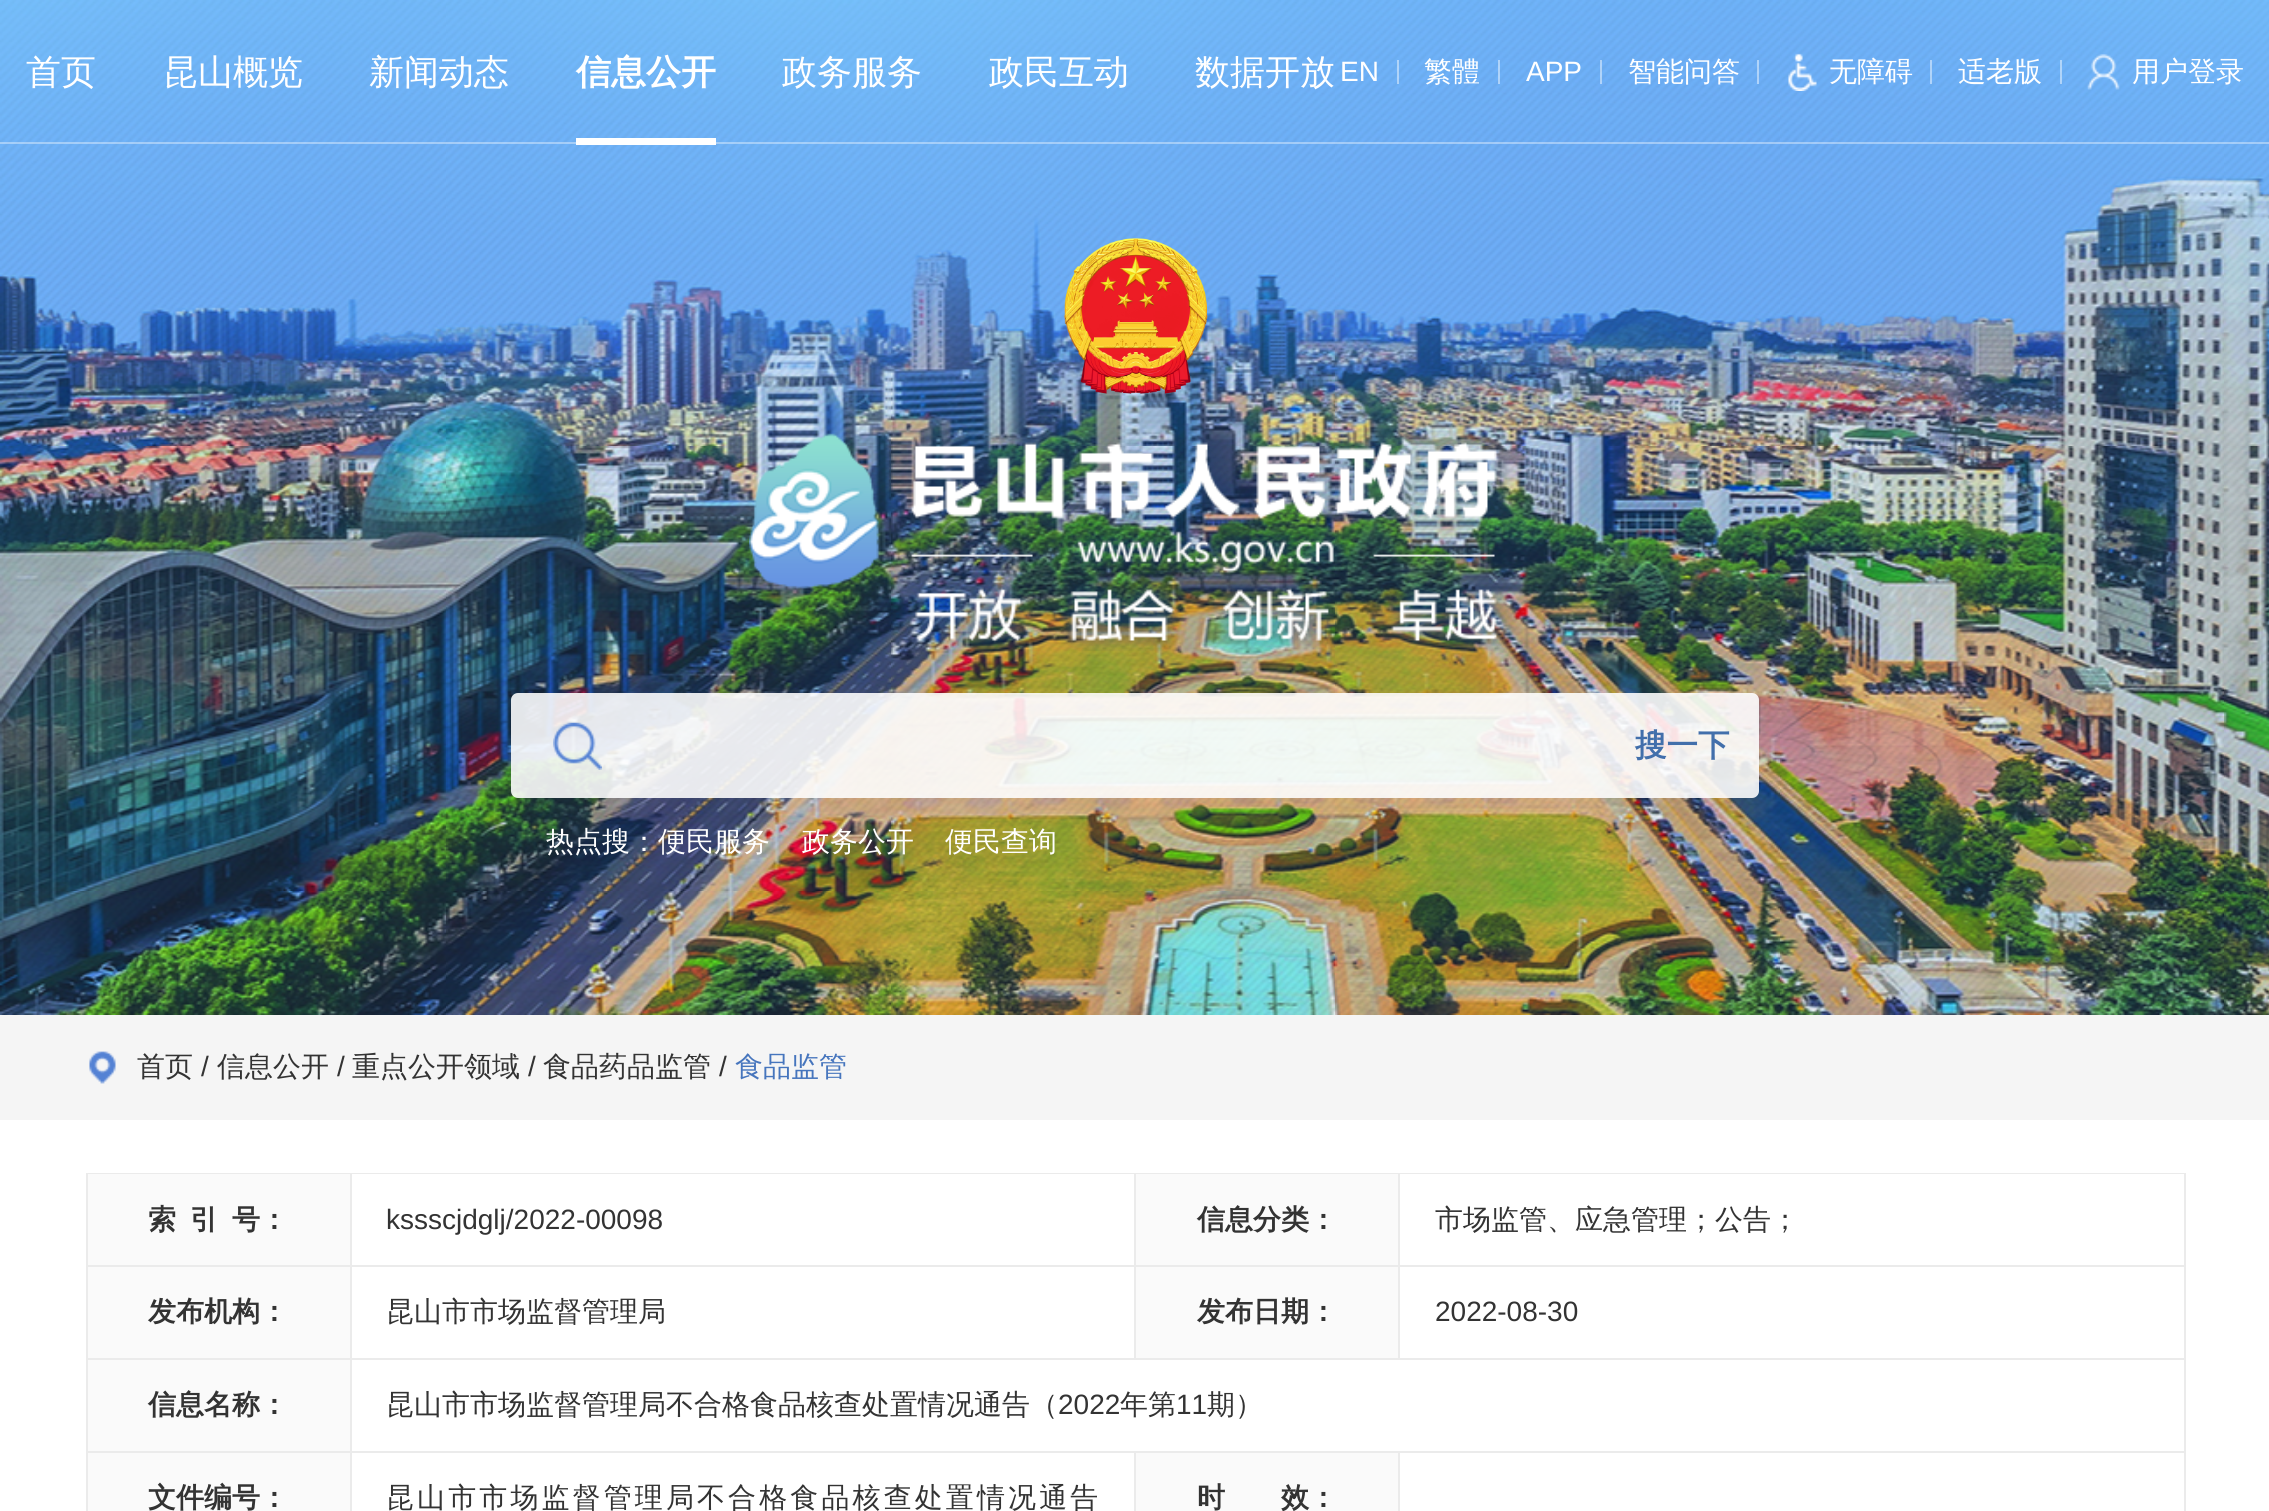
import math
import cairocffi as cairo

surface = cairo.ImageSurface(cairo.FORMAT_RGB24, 2269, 1511)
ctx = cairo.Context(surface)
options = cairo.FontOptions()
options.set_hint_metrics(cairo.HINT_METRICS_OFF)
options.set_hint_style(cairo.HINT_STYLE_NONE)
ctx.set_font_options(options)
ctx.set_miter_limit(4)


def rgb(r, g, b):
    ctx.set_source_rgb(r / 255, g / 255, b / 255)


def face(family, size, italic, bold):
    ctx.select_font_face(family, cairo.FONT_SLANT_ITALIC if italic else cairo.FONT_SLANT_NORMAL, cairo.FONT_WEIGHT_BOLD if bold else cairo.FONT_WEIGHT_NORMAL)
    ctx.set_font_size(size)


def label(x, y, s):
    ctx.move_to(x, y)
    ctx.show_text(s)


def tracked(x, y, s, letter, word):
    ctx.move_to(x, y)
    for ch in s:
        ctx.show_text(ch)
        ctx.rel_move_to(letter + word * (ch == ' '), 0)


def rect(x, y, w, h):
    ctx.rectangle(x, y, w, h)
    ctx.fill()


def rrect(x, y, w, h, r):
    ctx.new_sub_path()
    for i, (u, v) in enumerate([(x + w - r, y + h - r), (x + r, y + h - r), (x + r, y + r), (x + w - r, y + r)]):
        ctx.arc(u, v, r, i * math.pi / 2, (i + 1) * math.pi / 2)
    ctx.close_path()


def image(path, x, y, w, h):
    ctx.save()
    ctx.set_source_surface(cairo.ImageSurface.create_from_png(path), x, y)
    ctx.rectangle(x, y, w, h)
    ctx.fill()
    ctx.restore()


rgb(255, 255, 255)
ctx.paint()
image('image0.png', 0, 0, 2269, 1015)
face('WenQuanYi Zen Hei Medium', 35, 0, 0)
rgb(255, 255, 255)
label(26, 84, '首页')
label(163, 84, '昆山概览')
label(369, 84, '新闻动态')
face('WenQuanYi Zen Hei', 35, 0, 1)
label(576, 84, '信息公开')
rect(576, 138, 140, 7)
face('WenQuanYi Zen Hei Medium', 35, 0, 0)
label(782, 84, '政务服务')
label(989, 84, '政民互动')
label(1195, 84, '数据开放')
ctx.set_source_rgba(1, 1, 1, 0.38)
rect(0, 142, 2269, 2)
face('Liberation Sans', 28, 0, 0)
rgb(255, 255, 255)
label(1340, 81, 'EN')
ctx.set_source_rgba(1, 1, 1, 0.46)
rect(1397, 60, 2, 24)
face('WenQuanYi Zen Hei Medium', 28, 0, 0)
rgb(255, 255, 255)
label(1424, 81, '繁體')
ctx.set_source_rgba(1, 1, 1, 0.46)
rect(1498, 60, 2, 24)
face('Liberation Sans', 28, 0, 0)
rgb(255, 255, 255)
label(1526, 81, 'APP')
ctx.set_source_rgba(1, 1, 1, 0.46)
rect(1600, 60, 2, 24)
face('WenQuanYi Zen Hei Medium', 28, 0, 0)
rgb(255, 255, 255)
label(1628, 81, '智能问答')
ctx.set_source_rgba(1, 1, 1, 0.46)
rect(1757, 60, 2, 24)
image('image1.png', 1788, 53, 29, 38)
rgb(255, 255, 255)
label(1829, 81, '无障碍')
ctx.set_source_rgba(1, 1, 1, 0.46)
rect(1930, 60, 2, 24)
rgb(255, 255, 255)
label(1958, 81, '适老版')
ctx.set_source_rgba(1, 1, 1, 0.46)
rect(2060, 60, 2, 24)
image('image2.png', 2087, 54, 33, 36)
rgb(255, 255, 255)
label(2132, 81, '用户登录')
image('image3.png', 1064, 238, 144, 156)
image('image4.png', 749, 428, 761, 223)
ctx.set_source_rgba(1, 1, 1, 0.88)
rrect(511, 693, 1248, 105, 7)
ctx.fill()
image('image5.png', 553, 722, 49, 48)
face('WenQuanYi Zen Hei', 31.5, 0, 1)
rgb(66, 111, 171)
label(1635, 756, '搜一下')
face('WenQuanYi Zen Hei Medium', 28, 0, 0)
rgb(255, 255, 255)
label(546, 851, '热点搜：便民服务')
label(802, 851, '政务公开')
label(945, 851, '便民查询')
rgb(245, 245, 245)
rect(0, 1015, 2269, 105)
image('image6.png', 89, 1051, 27, 33)
rgb(51, 51, 51)
label(137, 1076, '首页')
face('Liberation Sans', 28, 0, 0)
label(201, 1076, '/')
face('WenQuanYi Zen Hei Medium', 28, 0, 0)
label(217, 1076, '信息公开')
face('Liberation Sans', 28, 0, 0)
label(337, 1076, '/')
face('WenQuanYi Zen Hei Medium', 28, 0, 0)
label(352, 1076, '重点公开领域')
face('Liberation Sans', 28, 0, 0)
label(528, 1076, '/')
face('WenQuanYi Zen Hei Medium', 28, 0, 0)
label(543, 1076, '食品药品监管')
face('Liberation Sans', 28, 0, 0)
label(719, 1076, '/')
face('WenQuanYi Zen Hei Medium', 28, 0, 0)
rgb(70, 117, 189)
label(735, 1076, '食品监管')
rgb(235, 235, 235)
rect(86, 1173, 2100, 1)
rect(2184, 1174, 2, 337)
rect(86, 1265, 2098, 2)
rgb(250, 250, 250)
rect(88, 1174, 262, 91)
rgb(235, 235, 235)
rect(86, 1174, 2, 91)
face('WenQuanYi Zen Hei', 28, 0, 1)
rgb(51, 51, 51)
label(148, 1229, '索')
label(190, 1229, '引')
label(232, 1229, '号：')
rgb(235, 235, 235)
rect(350, 1174, 2, 91)
face('Liberation Sans', 28, 0, 0)
rgb(51, 51, 51)
label(386, 1229, 'kssscjdglj/2022-00098')
rgb(250, 250, 250)
rect(1136, 1174, 262, 91)
rgb(235, 235, 235)
rect(1134, 1174, 2, 91)
face('WenQuanYi Zen Hei', 28, 0, 1)
rgb(51, 51, 51)
label(1197, 1229, '信息分类：')
rgb(235, 235, 235)
rect(1398, 1174, 2, 91)
face('WenQuanYi Zen Hei Medium', 28, 0, 0)
rgb(51, 51, 51)
label(1435, 1229, '市场监管、应急管理；公告；')
rgb(235, 235, 235)
rect(86, 1358, 2098, 2)
rgb(250, 250, 250)
rect(88, 1267, 262, 91)
rgb(235, 235, 235)
rect(86, 1267, 2, 91)
face('WenQuanYi Zen Hei', 28, 0, 1)
rgb(51, 51, 51)
label(148, 1321, '发布机构：')
rgb(235, 235, 235)
rect(350, 1267, 2, 91)
face('WenQuanYi Zen Hei Medium', 28, 0, 0)
rgb(51, 51, 51)
label(386, 1321, '昆山市市场监督管理局')
rgb(250, 250, 250)
rect(1136, 1267, 262, 91)
rgb(235, 235, 235)
rect(1134, 1267, 2, 91)
face('WenQuanYi Zen Hei', 28, 0, 1)
rgb(51, 51, 51)
label(1197, 1321, '发布日期：')
rgb(235, 235, 235)
rect(1398, 1267, 2, 91)
face('Liberation Sans', 28, 0, 0)
rgb(51, 51, 51)
label(1435, 1321, '2022-08-30')
rgb(235, 235, 235)
rect(86, 1451, 2098, 2)
rgb(250, 250, 250)
rect(88, 1360, 262, 91)
rgb(235, 235, 235)
rect(86, 1360, 2, 91)
face('WenQuanYi Zen Hei', 28, 0, 1)
rgb(51, 51, 51)
label(148, 1414, '信息名称：')
rgb(235, 235, 235)
rect(350, 1360, 2, 91)
face('WenQuanYi Zen Hei Medium', 28, 0, 0)
rgb(51, 51, 51)
label(386, 1414, '昆山市市场监督管理局不合格食品核查处置情况通告（')
face('Liberation Sans', 28, 0, 0)
label(1058, 1414, '2022')
face('WenQuanYi Zen Hei Medium', 28, 0, 0)
label(1120, 1414, '年第')
face('Liberation Sans', 28, 0, 0)
label(1176, 1414, '11')
face('WenQuanYi Zen Hei Medium', 28, 0, 0)
label(1207, 1414, '期）')
rgb(250, 250, 250)
rect(88, 1453, 262, 58)
rgb(235, 235, 235)
rect(86, 1453, 2, 58)
face('WenQuanYi Zen Hei', 28, 0, 1)
rgb(51, 51, 51)
label(148, 1507, '文件编号：')
rgb(235, 235, 235)
rect(350, 1453, 2, 58)
face('WenQuanYi Zen Hei Medium', 28, 0, 0)
rgb(51, 51, 51)
tracked(386, 1507, '昆山市市场监督管理局不合格食品核查处置情况通告', 3.1, 0)
rgb(250, 250, 250)
rect(1136, 1453, 262, 58)
rgb(235, 235, 235)
rect(1134, 1453, 2, 58)
face('WenQuanYi Zen Hei', 28, 0, 1)
rgb(51, 51, 51)
label(1197, 1507, '时　　效：')
rgb(235, 235, 235)
rect(1398, 1453, 2, 58)
surface.write_to_png('render.png')
